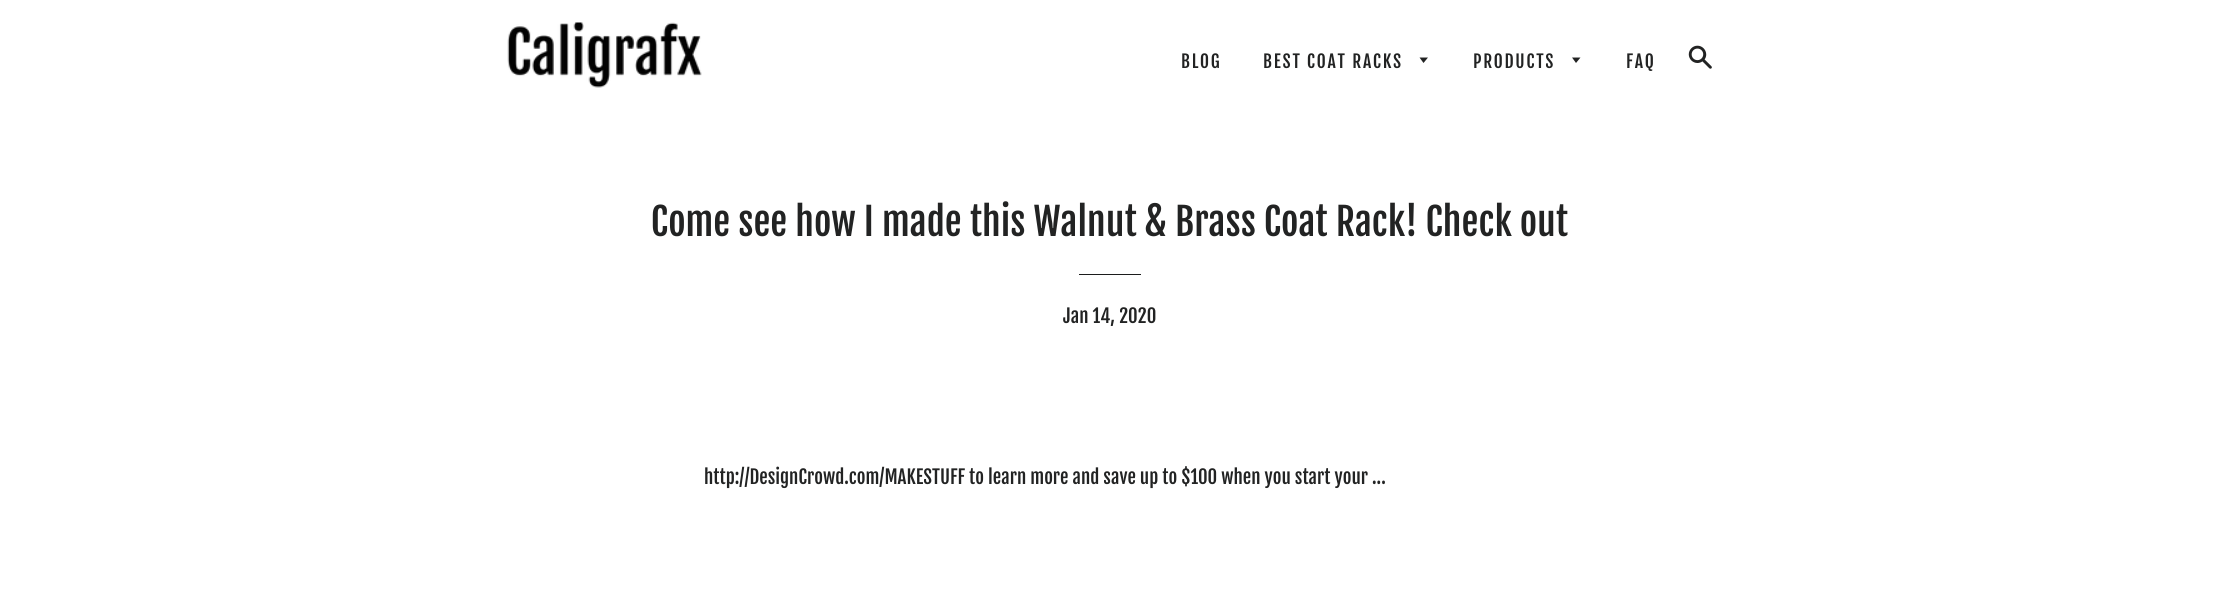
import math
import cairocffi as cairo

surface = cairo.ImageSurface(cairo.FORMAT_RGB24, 2220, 592)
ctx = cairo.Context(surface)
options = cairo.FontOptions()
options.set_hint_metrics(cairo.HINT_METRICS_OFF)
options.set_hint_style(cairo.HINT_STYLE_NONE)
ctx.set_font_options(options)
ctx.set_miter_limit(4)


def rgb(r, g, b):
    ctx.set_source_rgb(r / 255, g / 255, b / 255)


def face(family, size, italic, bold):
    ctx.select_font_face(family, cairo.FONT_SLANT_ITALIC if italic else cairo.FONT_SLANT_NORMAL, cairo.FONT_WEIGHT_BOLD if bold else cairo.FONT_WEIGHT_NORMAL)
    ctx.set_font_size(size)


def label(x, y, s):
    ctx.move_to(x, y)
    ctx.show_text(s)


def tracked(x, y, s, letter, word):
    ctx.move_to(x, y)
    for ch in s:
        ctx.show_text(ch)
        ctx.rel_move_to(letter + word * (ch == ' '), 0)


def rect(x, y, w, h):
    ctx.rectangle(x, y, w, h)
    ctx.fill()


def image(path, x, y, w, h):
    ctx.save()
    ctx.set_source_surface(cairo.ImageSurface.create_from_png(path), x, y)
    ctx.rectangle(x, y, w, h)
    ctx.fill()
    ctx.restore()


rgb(255, 255, 255)
ctx.paint()
image('image0.png', 507, 22, 195, 66)
face('Fjalla One', 17.5, 0, 0)
rgb(34, 35, 35)
tracked(1181, 68, 'BLOG', 1.75, 0)
tracked(1263, 68, 'BEST COAT RACKS', 1.75, 0)
ctx.new_path()
ctx.move_to(1419.5, 57.5)
ctx.line_to(1423.5, 63)
ctx.line_to(1428, 57.5)
ctx.close_path()
ctx.fill()
tracked(1473, 68, 'PRODUCTS', 1.75, 0)
ctx.new_path()
ctx.move_to(1572, 57.5)
ctx.line_to(1576, 63)
ctx.line_to(1580.5, 57.5)
ctx.close_path()
ctx.fill()
tracked(1626, 68, 'FAQ', 1.75, 0)
image('image1.png', 1688, 45, 24, 24)
face('Fjalla One', 37.5, 0, 0)
label(651, 236, 'Come see how I made this Walnut & Brass Coat Rack! Check out')
rgb(28, 29, 29)
rect(1079, 274, 62, 1)
face('Fjalla One', 18.75, 0, 0)
rgb(34, 35, 35)
label(1063, 323, 'Jan 14, 2020')
label(704, 484, 'http://DesignCrowd.com/MAKESTUFF to learn more and save up to $100 when you start your ...')
surface.write_to_png('render.png')
